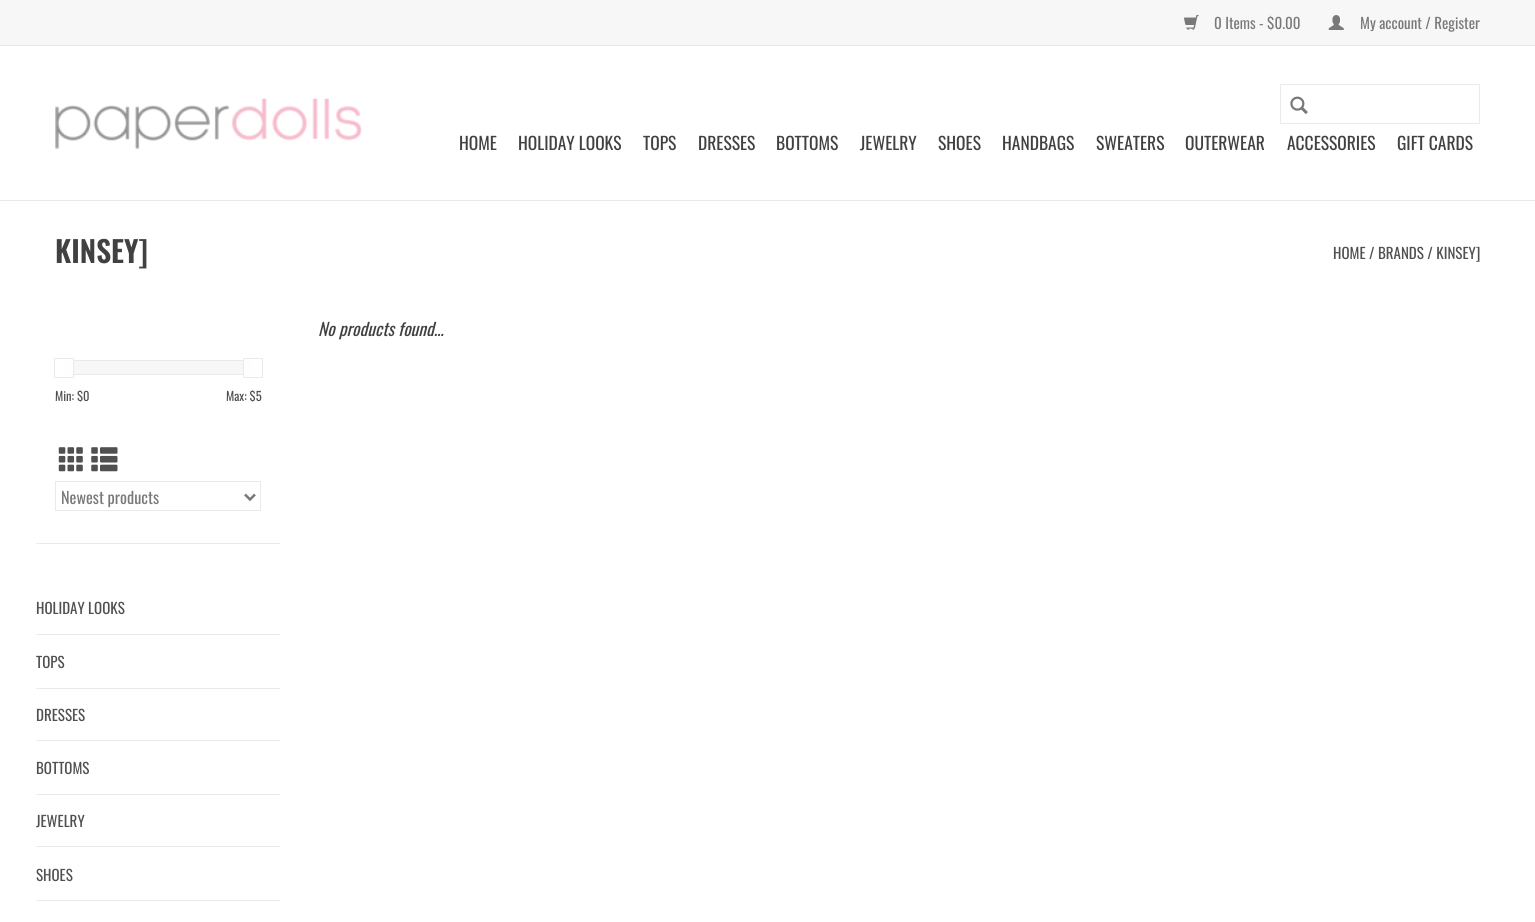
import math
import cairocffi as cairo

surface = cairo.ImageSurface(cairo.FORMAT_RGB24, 1535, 922)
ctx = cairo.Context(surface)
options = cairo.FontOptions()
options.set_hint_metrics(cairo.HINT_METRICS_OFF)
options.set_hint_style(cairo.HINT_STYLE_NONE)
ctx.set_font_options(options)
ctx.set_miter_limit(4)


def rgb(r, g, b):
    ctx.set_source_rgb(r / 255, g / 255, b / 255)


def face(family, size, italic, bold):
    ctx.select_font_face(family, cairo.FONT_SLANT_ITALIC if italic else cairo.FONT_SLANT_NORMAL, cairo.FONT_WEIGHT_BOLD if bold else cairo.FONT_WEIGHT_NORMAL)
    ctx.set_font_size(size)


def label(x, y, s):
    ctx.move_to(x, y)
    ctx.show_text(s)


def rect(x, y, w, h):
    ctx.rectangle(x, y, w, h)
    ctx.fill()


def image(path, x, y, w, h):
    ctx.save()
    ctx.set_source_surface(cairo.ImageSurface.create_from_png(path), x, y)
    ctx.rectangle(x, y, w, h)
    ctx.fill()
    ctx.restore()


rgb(255, 255, 255)
ctx.paint()
rgb(234, 234, 234)
rect(0, 200, 1535, 1)
rgb(247, 247, 247)
rect(0, 0, 1535, 45)
rgb(229, 229, 229)
rect(0, 45, 1535, 1)
image('image0.png', 1184, 15, 15, 15)
face('Oswald', 15, 0, 0)
rgb(121, 121, 121)
label(1214, 29, '0 Items - $0.00')
image('image1.png', 1328, 15, 16, 15)
label(1360, 29, 'My account / Register')
image('image2.png', 55, 98, 307, 51)
ctx.rectangle(1280.5, 84.5, 199, 39)
rgb(234, 234, 234)
ctx.set_line_width(1)
ctx.stroke()
image('image3.png', 1290, 96, 18, 18)
face('Oswald', 17.5, 0, 0)
rgb(65, 65, 65)
label(459, 150, 'HOME')
label(518, 150, 'HOLIDAY LOOKS')
label(643, 150, 'TOPS')
label(698, 150, 'DRESSES')
label(776, 150, 'BOTTOMS')
label(860, 150, 'JEWELRY')
label(938, 150, 'SHOES')
label(1002, 150, 'HANDBAGS')
label(1096, 150, 'SWEATERS')
label(1185, 150, 'OUTERWEAR')
label(1287, 150, 'ACCESSORIES')
label(1397, 150, 'GIFT CARDS')
face('Oswald SemiBold', 29.5, 0, 0)
label(55, 263, 'KINSEY]')
face('Oswald', 15, 0, 0)
rgb(80, 80, 80)
label(1333, 259, 'HOME / BRANDS / KINSEY]')
face('Oswald', 17.5, 1, 0)
rgb(65, 65, 65)
label(318, 336, 'No products found...')
rgb(234, 234, 234)
rect(36, 543, 244, 1)
rgb(247, 247, 247)
rect(74, 361, 169, 13)
ctx.rectangle(65.5, 360.5, 188, 14)
rgb(234, 234, 234)
ctx.stroke()
rgb(254, 254, 254)
rect(65, 360, 8, 15)
ctx.rectangle(54.5, 358.5, 19, 19)
rgb(234, 234, 234)
ctx.stroke()
rgb(254, 254, 254)
rect(244, 360, 10, 15)
ctx.rectangle(243.5, 358.5, 19, 19)
rgb(234, 234, 234)
ctx.stroke()
face('Oswald', 12.5, 0, 0)
rgb(80, 80, 80)
label(55, 401, 'Min: $0')
label(226, 401, 'Max: $5')
image('image4.png', 58, 447, 25, 25)
image('image5.png', 91, 447, 27, 25)
ctx.rectangle(55.5, 481.5, 205, 29)
rgb(234, 234, 234)
ctx.stroke()
ctx.new_path()
ctx.move_to(245, 494.5)
ctx.line_to(250, 499.5)
ctx.line_to(255, 494.5)
rgb(119, 119, 119)
ctx.set_line_width(2.5)
ctx.stroke()
face('Oswald', 16.25, 0, 0)
rgb(121, 121, 121)
label(61, 504, 'Newest products')
rgb(234, 234, 234)
rect(36, 634, 244, 1)
face('Oswald', 15, 0, 0)
rgb(80, 80, 80)
label(36, 614, 'HOLIDAY LOOKS')
rgb(234, 234, 234)
rect(36, 688, 244, 1)
rgb(80, 80, 80)
label(36, 668, 'TOPS')
rgb(234, 234, 234)
rect(36, 740, 244, 1)
rgb(80, 80, 80)
label(36, 721, 'DRESSES')
rgb(234, 234, 234)
rect(36, 794, 244, 1)
rgb(80, 80, 80)
label(36, 774, 'BOTTOMS')
rgb(234, 234, 234)
rect(36, 846, 244, 1)
rgb(80, 80, 80)
label(36, 827, 'JEWELRY')
rgb(234, 234, 234)
rect(36, 900, 244, 1)
rgb(80, 80, 80)
label(36, 881, 'SHOES')
surface.write_to_png('render.png')
